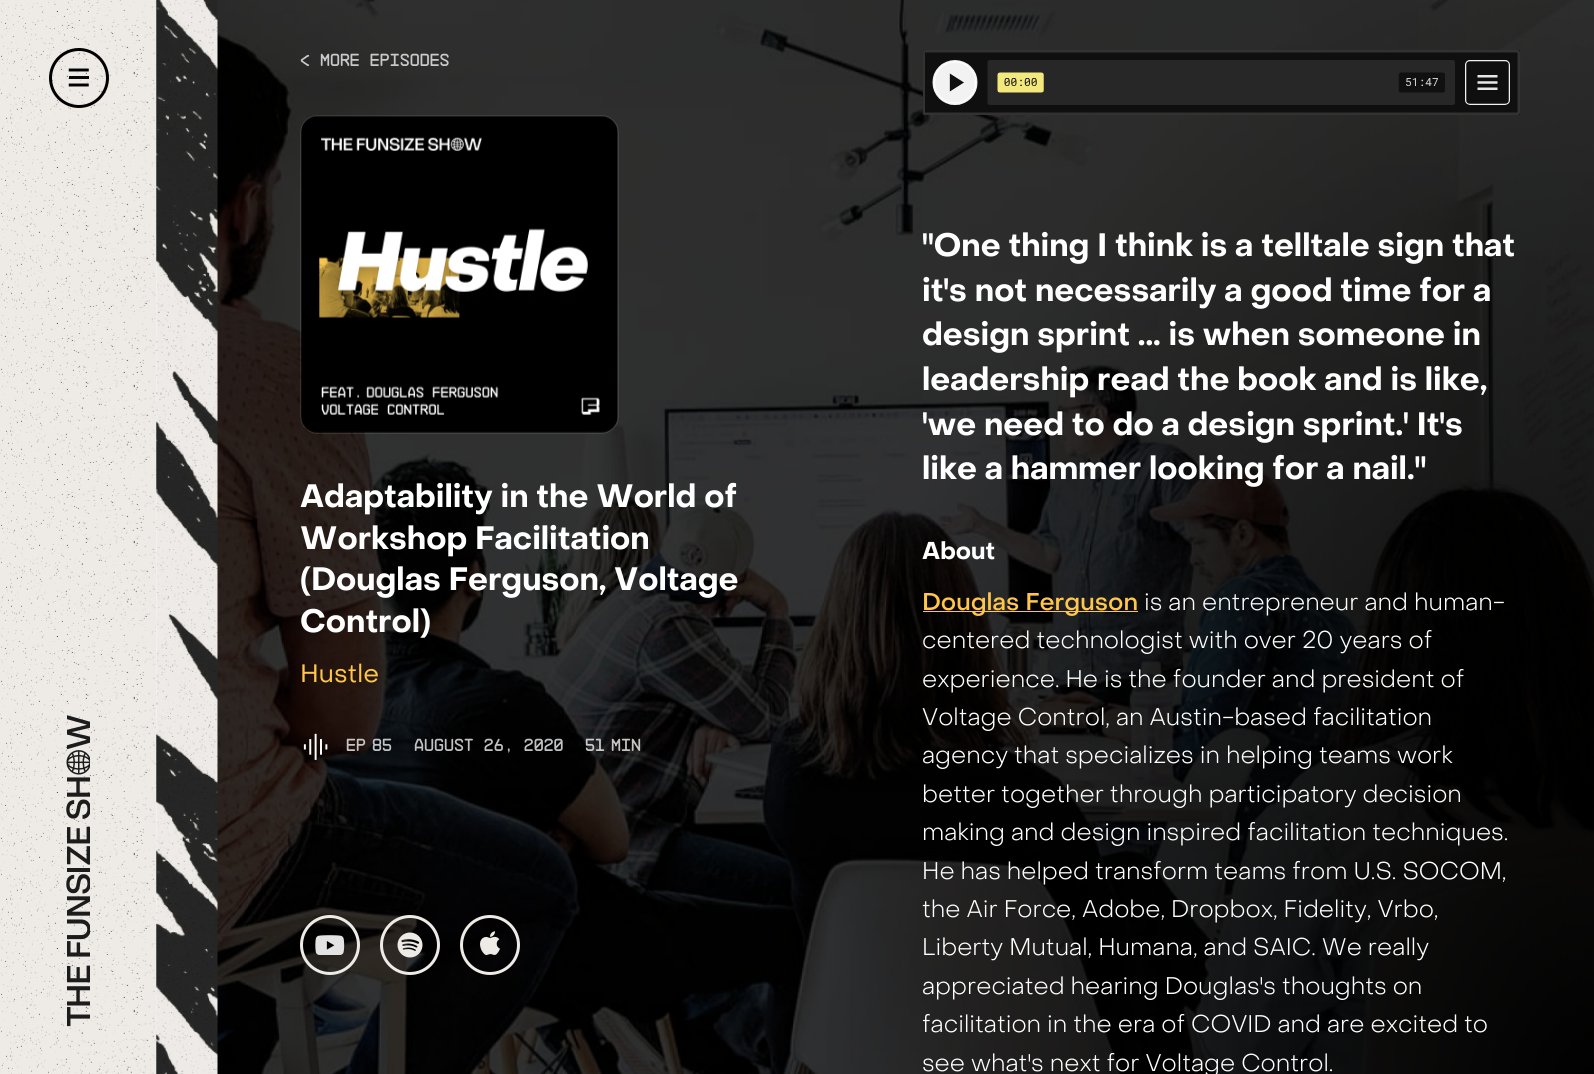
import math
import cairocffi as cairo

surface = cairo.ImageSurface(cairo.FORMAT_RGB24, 1594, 1074)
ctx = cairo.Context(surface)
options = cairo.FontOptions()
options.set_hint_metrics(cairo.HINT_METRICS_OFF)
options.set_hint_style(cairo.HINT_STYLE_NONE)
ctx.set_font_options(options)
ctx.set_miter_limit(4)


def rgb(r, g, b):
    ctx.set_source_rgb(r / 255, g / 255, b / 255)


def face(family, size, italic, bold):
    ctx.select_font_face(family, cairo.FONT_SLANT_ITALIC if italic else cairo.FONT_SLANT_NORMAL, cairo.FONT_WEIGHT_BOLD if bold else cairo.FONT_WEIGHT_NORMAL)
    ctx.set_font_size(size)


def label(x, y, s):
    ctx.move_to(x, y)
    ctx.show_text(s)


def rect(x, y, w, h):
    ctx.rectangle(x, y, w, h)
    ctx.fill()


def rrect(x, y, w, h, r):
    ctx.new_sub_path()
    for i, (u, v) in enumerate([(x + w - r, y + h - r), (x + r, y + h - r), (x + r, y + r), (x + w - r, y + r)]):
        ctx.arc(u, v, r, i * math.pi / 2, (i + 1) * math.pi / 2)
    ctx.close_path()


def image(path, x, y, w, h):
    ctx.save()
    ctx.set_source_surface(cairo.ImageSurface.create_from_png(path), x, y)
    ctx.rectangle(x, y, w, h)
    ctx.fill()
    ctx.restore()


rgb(255, 255, 255)
ctx.paint()
image('image0.png', 156, 1, 1, 1069)
rgb(238, 235, 231)
rect(0, 0, 156, 1074)
image('image1.png', 0, 0, 156, 1074)
ctx.arc(79, 78, 28.5, 0, 2 * math.pi)
rgb(0, 0, 0)
ctx.set_line_width(3)
ctx.stroke()
image('image2.png', 68, 68, 21, 19)
image('image3.png', 66, 715, 24, 312)
image('image5.png', 217, 0, 1377, 1074)
image('image4.png', 156, 0, 62, 1074)
face('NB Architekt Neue', 17.5, 0, 0)
rgb(202, 202, 202)
label(300, 66, '< More Episodes')
rrect(300.5, 115.5, 318, 318, 17.5)
ctx.set_source_rgba(1, 1, 1, 0.1)
ctx.set_line_width(1)
ctx.stroke()
image('image6.png', 301, 115, 317, 318)
face('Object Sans', 31.9, 0, 1)
rgb(255, 255, 255)
label(300, 507, 'Adaptability in the World of')
label(300, 549, 'Workshop Facilitation')
label(300, 590, '(Douglas Ferguson, Voltage')
label(300, 632, 'Control)')
face('Object Sans', 25, 0, 0)
rgb(255, 198, 75)
label(300, 682, 'Hustle')
image('image7.png', 303, 733, 25, 27)
face('NB Architekt Neue', 17.5, 0, 0)
rgb(199, 196, 194)
label(346, 751, 'Ep')
rgb(193, 194, 195)
label(372, 751, '85')
label(414, 751, 'August 26, 2020')
rgb(202, 202, 202)
label(585, 751, '51')
rgb(199, 196, 194)
label(611, 751, 'Min')
ctx.new_path()
ctx.arc(330, 945, 28.5, 0, 2 * math.pi)
rgb(238, 235, 231)
ctx.set_line_width(3)
ctx.stroke()
image('image8.png', 315, 935, 30, 20)
ctx.arc(410, 945, 28.5, 0, 2 * math.pi)
ctx.stroke()
image('image9.png', 397, 932, 26, 26)
ctx.arc(490, 945, 28.5, 0, 2 * math.pi)
ctx.stroke()
image('image10.png', 480, 931, 20, 24)
image('image11.png', 923, 50, 597, 65)
face('Object Sans', 31.9, 0, 1)
rgb(255, 255, 255)
label(922, 256, '"One thing I think is a telltale sign that')
label(922, 301, 'it\'s not necessarily a good time for a')
label(922, 345, 'design sprint ... is when someone in')
label(922, 390, 'leadership read the book and is like,')
label(922, 435, '\'we need to do a design sprint.\' It\'s')
label(922, 479, 'like a hammer looking for a nail."')
face('Object Sans', 24, 0, 1)
label(922, 559, 'About')
rgb(255, 198, 75)
rect(923, 611, 215, 1)
face('Object Sans Medium', 24, 0, 0)
label(922, 610, 'Douglas Ferguson')
face('Object Sans Light', 24, 0, 0)
rgb(255, 255, 255)
label(1144, 610, 'is an entrepreneur and human-')
label(922, 648, 'centered technologist with over 20 years of')
label(922, 687, 'experience. He is the founder and president of')
label(922, 725, 'Voltage Control, an Austin-based facilitation')
label(922, 763, 'agency that specializes in helping teams work')
label(922, 802, 'better together through participatory decision')
label(922, 840, 'making and design inspired facilitation techniques.')
label(922, 879, 'He has helped transform teams from U.S. SOCOM,')
label(922, 917, 'the Air Force, Adobe, Dropbox, Fidelity, Vrbo,')
label(922, 955, 'Liberty Mutual, Humana, and SAIC. We really')
label(922, 994, 'appreciated hearing Douglas\'s thoughts on')
label(922, 1032, 'facilitation in the era of COVID and are excited to')
label(922, 1071, 'see what\'s next for Voltage Control.')
surface.write_to_png('render.png')
